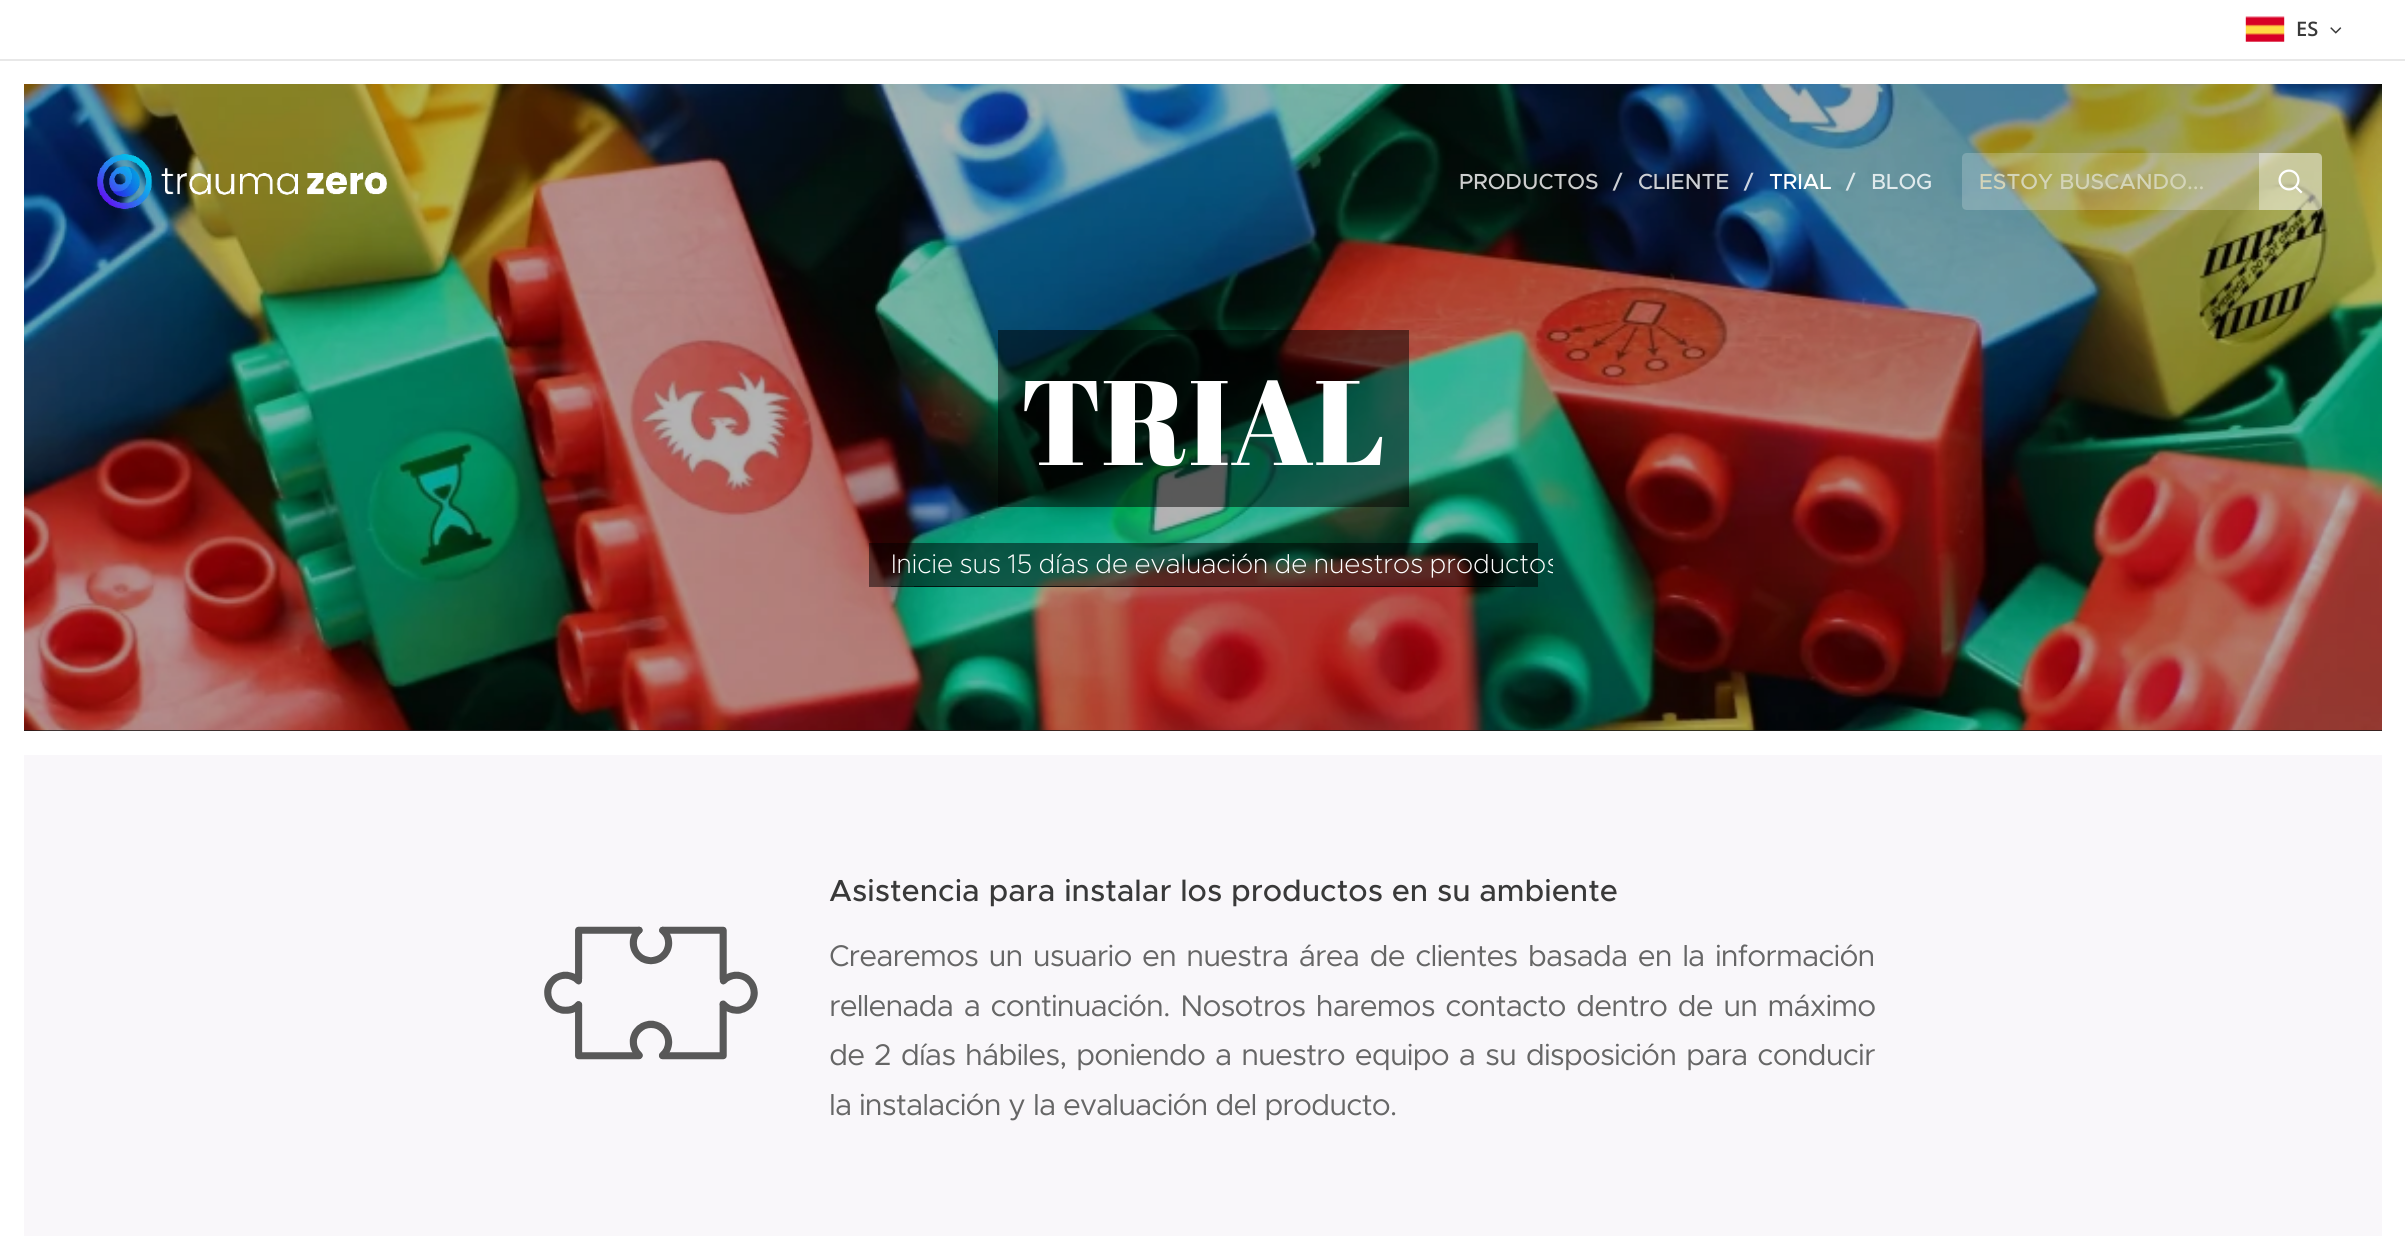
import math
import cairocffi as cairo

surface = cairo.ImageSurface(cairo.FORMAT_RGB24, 2405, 1236)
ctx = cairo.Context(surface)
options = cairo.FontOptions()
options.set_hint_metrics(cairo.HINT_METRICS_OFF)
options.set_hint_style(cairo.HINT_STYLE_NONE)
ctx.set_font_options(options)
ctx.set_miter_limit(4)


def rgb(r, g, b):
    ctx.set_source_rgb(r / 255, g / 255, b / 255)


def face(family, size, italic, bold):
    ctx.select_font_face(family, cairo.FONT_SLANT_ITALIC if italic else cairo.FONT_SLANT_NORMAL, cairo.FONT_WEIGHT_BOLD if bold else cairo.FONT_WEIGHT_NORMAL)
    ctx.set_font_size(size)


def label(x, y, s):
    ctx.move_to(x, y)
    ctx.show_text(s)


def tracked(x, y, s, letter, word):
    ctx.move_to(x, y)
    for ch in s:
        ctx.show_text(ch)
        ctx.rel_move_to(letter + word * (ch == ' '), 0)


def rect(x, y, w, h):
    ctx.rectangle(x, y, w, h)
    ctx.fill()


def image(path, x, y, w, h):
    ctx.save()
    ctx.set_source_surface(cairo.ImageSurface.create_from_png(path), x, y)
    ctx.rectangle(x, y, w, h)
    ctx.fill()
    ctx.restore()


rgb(255, 255, 255)
ctx.paint()
image('image0.png', 2245, 16, 40, 26)
face('Open Sans SemiBold', 20, 0, 0)
rgb(57, 57, 57)
label(2296, 36, 'ES')
image('image1.png', 2330, 27, 12, 7)
rgb(232, 232, 232)
rect(0, 59, 2405, 2)
rgb(27, 27, 27)
rect(24, 730, 2358, 1)
image('image4.png', 24, 84, 2358, 647)
image('image2.png', 97, 154, 290, 55)
face('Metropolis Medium', 21.9, 0, 0)
rgb(205, 206, 206)
label(1459, 189, 'PRODUCTOS')
rgb(204, 207, 212)
label(1613, 189, '/')
label(1638, 189, 'CLIENTE')
rgb(206, 214, 226)
label(1744, 189, '/')
rgb(255, 255, 255)
label(1769, 189, 'TRIAL')
rgb(224, 234, 236)
label(1846, 189, '/')
label(1871, 189, 'BLOG')
ctx.set_source_rgba(1, 1, 1, 0.2)
ctx.new_path()
ctx.move_to(1967, 153)
ctx.line_to(2259, 153)
ctx.line_to(2259, 210)
ctx.line_to(1967, 210)
ctx.curve_to(1964, 210, 1962, 208, 1962, 205)
ctx.line_to(1962, 158)
ctx.curve_to(1962, 155, 1964, 153, 1967, 153)
ctx.close_path()
ctx.fill()
rgb(212, 212, 184)
label(1979, 189, 'ESTOY BUSCANDO...')
ctx.set_source_rgba(1, 1, 1, 0.5)
ctx.new_path()
ctx.move_to(2259, 153)
ctx.line_to(2317, 153)
ctx.curve_to(2320, 153, 2322, 155, 2322, 158)
ctx.line_to(2322, 205)
ctx.curve_to(2322, 208, 2320, 210, 2317, 210)
ctx.line_to(2259, 210)
ctx.close_path()
ctx.fill()
image('image3.png', 2278, 169, 25, 25)
ctx.set_source_rgba(0, 0, 0, 0.5)
rect(1020, 330, 366, 177)
face('Abril Fatface', 120, 0, 0)
rgb(255, 255, 255)
label(1020, 465, 'TRIAL')
ctx.set_source_rgba(0, 0, 0, 0.5)
rect(998, 330, 22, 177)
rect(1386, 330, 23, 177)
ctx.new_path()
ctx.move_to(869, 543)
ctx.line_to(869, 587)
ctx.line_to(1493, 587)
ctx.line_to(1493, 586)
ctx.line_to(891, 586)
ctx.line_to(891, 543)
ctx.close_path()
ctx.fill()
ctx.new_path()
ctx.move_to(914, 586)
ctx.line_to(914, 587)
ctx.line_to(1538, 587)
ctx.line_to(1538, 543)
ctx.line_to(1515, 543)
ctx.line_to(1515, 586)
ctx.close_path()
ctx.fill()
rect(891, 543, 624, 44)
ctx.save()
ctx.rectangle(854, 528, 699, 75)
ctx.clip()
face('Metropolis ExtraLight', 27, 0, 0)
rgb(255, 255, 255)
tracked(891, 573, 'Inicie sus 15 días de evaluación de nuestros productos', 0, -1.5)
ctx.restore()
rgb(249, 247, 250)
rect(24, 755, 2358, 481)
image('image5.png', 544, 926, 214, 134)
face('Metropolis Medium', 30.6, 0, 0)
rgb(57, 57, 57)
label(829, 901, 'Asistencia para instalar los productos en su ambiente')
face('Metropolis', 30, 0, 0)
rgb(102, 102, 102)
tracked(829, 966, 'Crearemos un usuario en nuestra área de clientes basada en la información', -0.9, 2.75)
tracked(829, 1016, 'rellenada a continuación. Nosotros haremos contacto dentro de un máximo', -0.9, 2.75)
tracked(829, 1065, 'de 2 días hábiles, poniendo a nuestro equipo a su disposición para conducir', -0.9, 2.1)
tracked(829, 1115, 'la instalación y la evaluación del producto.', -0.9, 0)
surface.write_to_png('render.png')
